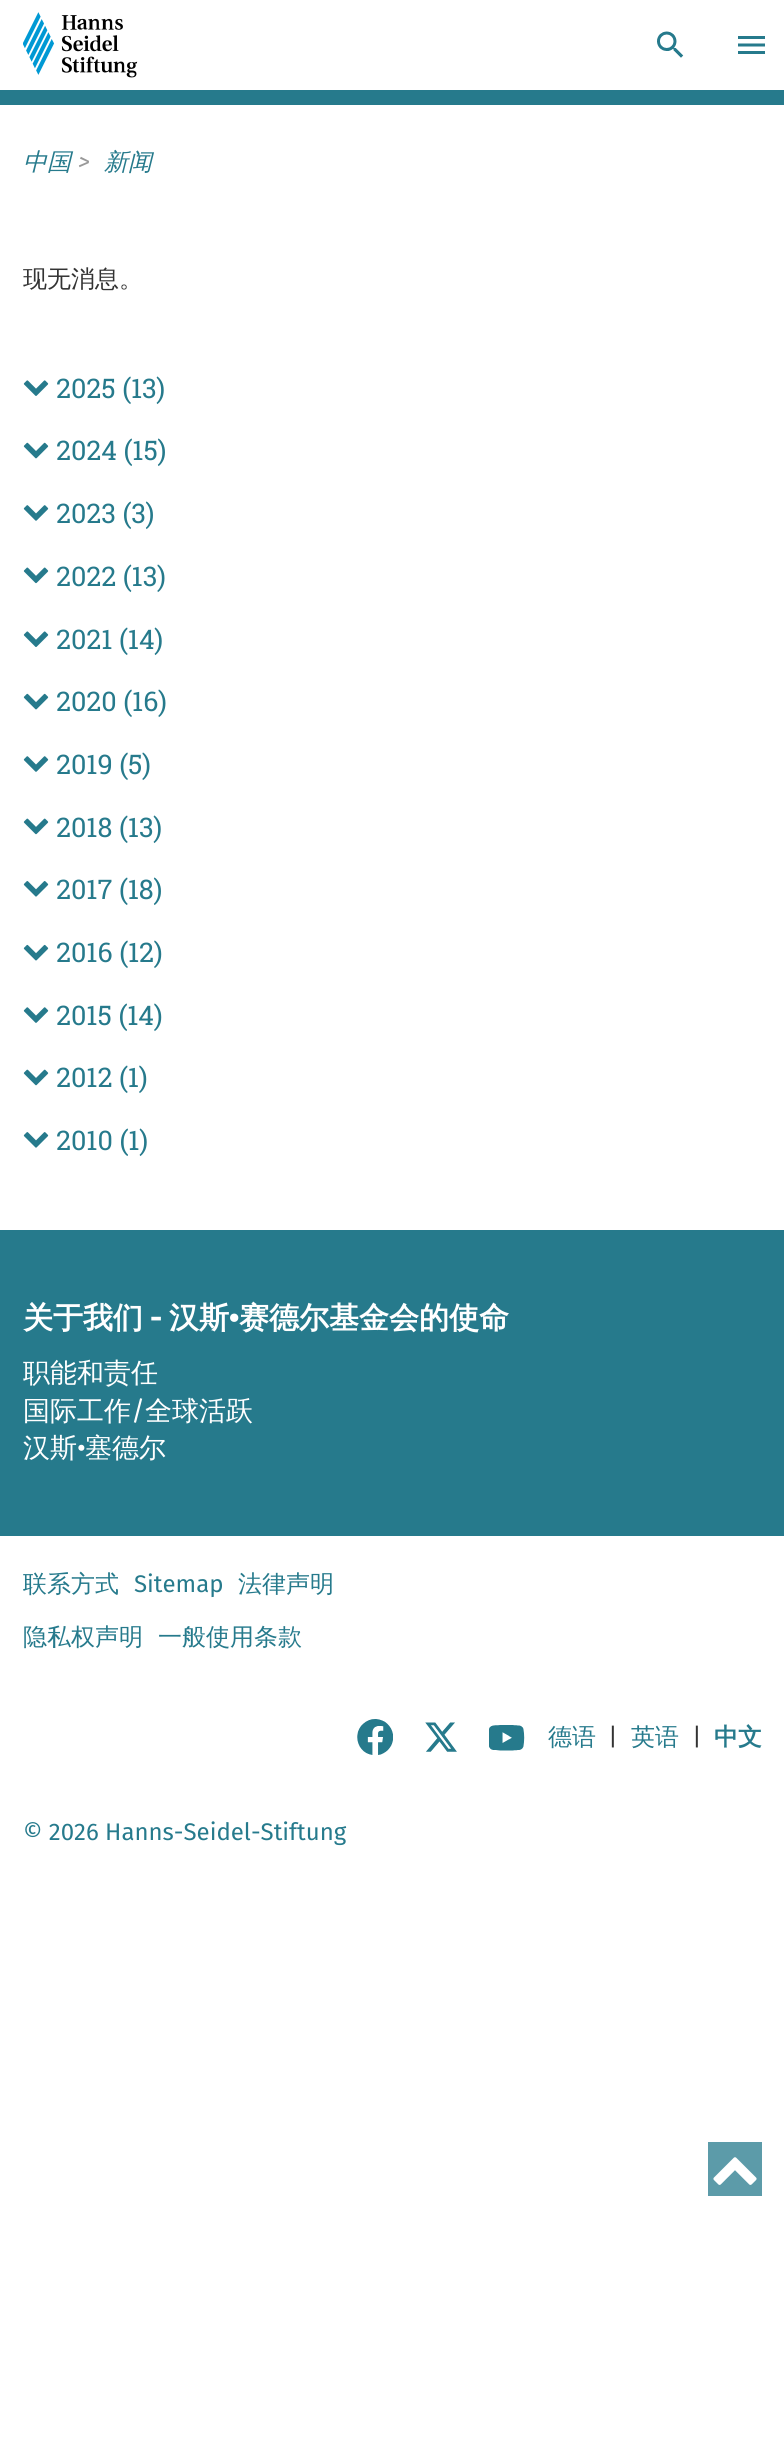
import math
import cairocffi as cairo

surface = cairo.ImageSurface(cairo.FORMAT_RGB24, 784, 2450)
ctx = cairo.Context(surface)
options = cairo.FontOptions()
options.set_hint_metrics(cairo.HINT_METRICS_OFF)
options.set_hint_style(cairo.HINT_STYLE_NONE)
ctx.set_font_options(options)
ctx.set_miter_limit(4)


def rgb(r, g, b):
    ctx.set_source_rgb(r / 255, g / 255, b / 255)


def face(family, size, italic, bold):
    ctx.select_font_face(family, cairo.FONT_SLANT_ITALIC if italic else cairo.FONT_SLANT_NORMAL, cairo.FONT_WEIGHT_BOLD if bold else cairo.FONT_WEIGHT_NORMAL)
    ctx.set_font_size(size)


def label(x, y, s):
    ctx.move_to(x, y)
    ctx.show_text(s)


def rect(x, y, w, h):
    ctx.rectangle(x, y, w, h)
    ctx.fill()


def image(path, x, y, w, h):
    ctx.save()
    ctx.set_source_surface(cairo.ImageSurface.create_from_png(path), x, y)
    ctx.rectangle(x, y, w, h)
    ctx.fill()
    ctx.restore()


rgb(255, 255, 255)
ctx.paint()
rgb(38, 122, 140)
rect(0, 90, 784, 15)
image('image0.png', 23, 12, 115, 66)
image('image1.png', 657, 31, 27, 27)
image('image2.png', 738, 36, 27, 18)
face('WenQuanYi Zen Hei Medium', 24, 1, 0)
label(23, 170, '中国')
face('Fira Sans', 24, 1, 0)
rgb(153, 153, 153)
label(78, 170, '>')
face('WenQuanYi Zen Hei Medium', 24, 1, 0)
rgb(38, 122, 140)
label(104, 170, '新闻')
face('WenQuanYi Zen Hei Medium', 24, 0, 0)
rgb(51, 51, 51)
label(23, 287, '现无消息。')
image('image3.png', 23, 380, 26, 16)
face('Roboto Slab', 27, 0, 0)
rgb(38, 122, 140)
label(56, 398, '2025 (13)')
image('image4.png', 23, 442, 26, 17)
label(56, 460, '2024 (15)')
image('image5.png', 23, 505, 26, 16)
label(56, 523, '2023 (3)')
image('image6.png', 23, 567, 26, 17)
label(56, 586, '2022 (13)')
image('image7.png', 23, 631, 26, 16)
label(56, 649, '2021 (14)')
image('image8.png', 23, 693, 26, 17)
label(56, 711, '2020 (16)')
image('image9.png', 23, 756, 26, 16)
label(56, 774, '2019 (5)')
image('image10.png', 23, 818, 26, 17)
label(56, 837, '2018 (13)')
image('image11.png', 23, 881, 26, 16)
label(56, 899, '2017 (18)')
image('image12.png', 23, 944, 26, 17)
label(56, 962, '2016 (12)')
image('image13.png', 23, 1007, 26, 16)
label(56, 1025, '2015 (14)')
image('image14.png', 23, 1069, 26, 17)
label(56, 1087, '2012 (1)')
image('image15.png', 23, 1132, 26, 16)
label(56, 1150, '2010 (1)')
rect(0, 1230, 784, 306)
face('WenQuanYi Zen Hei', 30, 0, 1)
rgb(255, 255, 255)
label(23, 1328, '关于我们')
face('Fira Sans', 30, 0, 1)
label(150, 1328, '-')
face('WenQuanYi Zen Hei', 30, 0, 1)
label(169, 1328, '汉斯')
face('Fira Sans', 30, 0, 1)
label(229, 1328, '•')
face('WenQuanYi Zen Hei', 30, 0, 1)
label(239, 1328, '赛德尔基金会的使命')
face('WenQuanYi Zen Hei Medium', 27, 0, 0)
label(23, 1382, '职能和责任')
label(23, 1420, '国际工作')
face('Fira Sans', 27, 0, 0)
label(131, 1420, '/')
face('WenQuanYi Zen Hei Medium', 27, 0, 0)
label(145, 1420, '全球活跃')
label(23, 1457, '汉斯')
face('Fira Sans', 27, 0, 0)
label(77, 1457, '•')
face('WenQuanYi Zen Hei Medium', 27, 0, 0)
label(85, 1457, '塞德尔')
face('WenQuanYi Zen Hei Medium', 24, 0, 0)
rgb(38, 122, 140)
label(23, 1592, '联系方式')
face('Fira Sans', 24, 0, 0)
label(134, 1592, 'Sitemap')
face('WenQuanYi Zen Hei Medium', 24, 0, 0)
label(238, 1592, '法律声明')
label(23, 1645, '隐私权声明')
label(158, 1645, '一般使用条款')
image('image16.png', 357, 1719, 36, 36)
image('image17.png', 425, 1722, 32, 30)
image('image18.png', 489, 1725, 36, 26)
label(548, 1745, '德语')
face('Fira Sans', 24, 0, 0)
rgb(51, 51, 51)
label(608, 1745, '|')
face('WenQuanYi Zen Hei Medium', 24, 0, 0)
rgb(38, 122, 140)
label(631, 1745, '英语')
face('Fira Sans', 24, 0, 0)
rgb(51, 51, 51)
label(692, 1745, '|')
face('WenQuanYi Zen Hei', 24, 0, 1)
rgb(38, 122, 140)
label(714, 1745, '中文')
face('Fira Sans', 24, 0, 0)
label(23, 1840, '© 2026 Hanns-Seidel-Stiftung')
rgb(92, 155, 169)
rect(708, 2142, 54, 54)
image('image19.png', 713, 2157, 44, 28)
surface.write_to_png('render.png')
